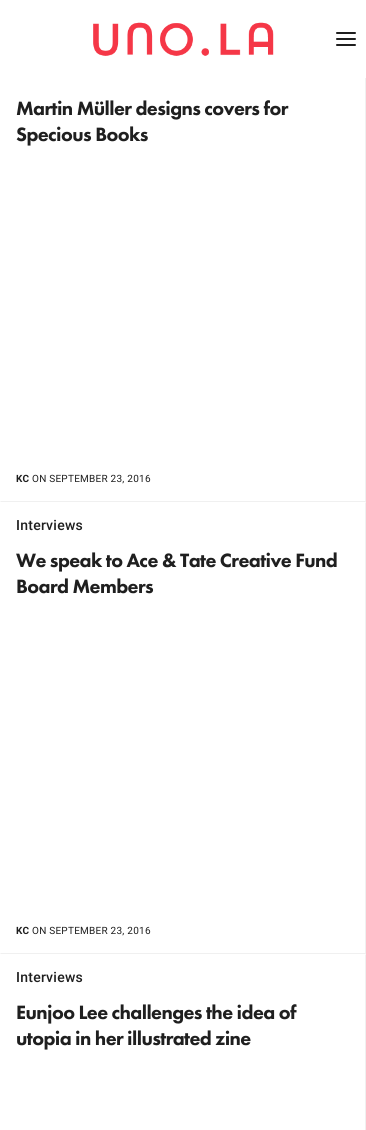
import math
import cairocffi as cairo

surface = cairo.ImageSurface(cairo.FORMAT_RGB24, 366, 1130)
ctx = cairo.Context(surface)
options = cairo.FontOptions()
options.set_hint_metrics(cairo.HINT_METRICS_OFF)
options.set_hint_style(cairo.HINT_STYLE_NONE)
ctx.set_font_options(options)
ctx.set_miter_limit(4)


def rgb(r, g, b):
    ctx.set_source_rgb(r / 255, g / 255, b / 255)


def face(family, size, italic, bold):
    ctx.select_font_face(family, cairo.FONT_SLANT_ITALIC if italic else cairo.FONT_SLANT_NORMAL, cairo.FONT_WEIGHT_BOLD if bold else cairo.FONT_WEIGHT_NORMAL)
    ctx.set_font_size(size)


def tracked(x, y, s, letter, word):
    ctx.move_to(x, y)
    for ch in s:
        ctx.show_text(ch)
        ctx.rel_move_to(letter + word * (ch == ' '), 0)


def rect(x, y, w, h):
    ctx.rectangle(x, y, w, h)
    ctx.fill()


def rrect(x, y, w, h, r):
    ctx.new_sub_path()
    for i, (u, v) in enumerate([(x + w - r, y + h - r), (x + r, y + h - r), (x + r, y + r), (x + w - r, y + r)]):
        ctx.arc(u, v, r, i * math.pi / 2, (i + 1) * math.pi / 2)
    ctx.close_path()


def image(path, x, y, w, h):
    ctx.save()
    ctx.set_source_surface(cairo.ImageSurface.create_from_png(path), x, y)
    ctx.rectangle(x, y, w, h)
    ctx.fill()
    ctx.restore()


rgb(255, 255, 255)
ctx.paint()
image('image0.png', 93, 22, 181, 34)
rgb(31, 31, 31)
rrect(336, 32, 20, 2, 1)
ctx.fill()
rrect(336, 38, 20, 2, 1)
ctx.fill()
rrect(336, 44, 20, 2, 1)
ctx.fill()
rgb(240, 240, 240)
ctx.new_path()
ctx.move_to(366, 50)
ctx.line_to(366, 502)
ctx.line_to(365, 501)
ctx.line_to(365, 51)
ctx.close_path()
ctx.fill()
rgb(255, 255, 255)
rect(365, 50, 1, 28)
ctx.set_source_rgba(0, 0, 0, 0.06)
ctx.new_path()
ctx.move_to(366, 502)
ctx.line_to(0, 502)
ctx.line_to(1, 501)
ctx.line_to(365, 501)
ctx.close_path()
ctx.fill()
face('Futura PT Black', 20, 0, 0)
rgb(31, 31, 31)
tracked(16, 115, 'Martin Müller designs covers for', -0.6, 0)
tracked(16, 141, 'Specious Books', -0.6, 0)
face('Roboto', 10, 0, 1)
tracked(16, 482, 'KC', 0.25, 0)
face('Roboto', 10, 0, 0)
tracked(32, 482, 'ON SEPTEMBER 23, 2016', 0.25, 0)
rgb(240, 240, 240)
ctx.new_path()
ctx.move_to(366, 502)
ctx.line_to(366, 954)
ctx.line_to(365, 953)
ctx.line_to(365, 503)
ctx.close_path()
ctx.fill()
ctx.set_source_rgba(0, 0, 0, 0.06)
ctx.new_path()
ctx.move_to(366, 954)
ctx.line_to(0, 954)
ctx.line_to(1, 953)
ctx.line_to(365, 953)
ctx.close_path()
ctx.fill()
face('Roboto Medium', 14, 0, 0)
rgb(31, 31, 31)
tracked(16, 530, 'Interviews', 0.25, 0)
face('Futura PT Black', 20, 0, 0)
tracked(16, 567, 'We speak to Ace & Tate Creative Fund', -0.6, 0)
tracked(16, 593, 'Board Members', -0.6, 0)
face('Roboto', 10, 0, 1)
tracked(16, 934, 'KC', 0.25, 0)
face('Roboto', 10, 0, 0)
tracked(32, 934, 'ON SEPTEMBER 23, 2016', 0.25, 0)
rgb(240, 240, 240)
ctx.new_path()
ctx.move_to(366, 954)
ctx.line_to(366, 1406)
ctx.line_to(365, 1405)
ctx.line_to(365, 955)
ctx.close_path()
ctx.fill()
face('Roboto Medium', 14, 0, 0)
rgb(31, 31, 31)
tracked(16, 982, 'Interviews', 0.25, 0)
face('Futura PT Black', 20, 0, 0)
tracked(16, 1019, 'Eunjoo Lee challenges the idea of', -0.6, 0)
tracked(16, 1045, 'utopia in her illustrated zine', -0.6, 0)
surface.write_to_png('render.png')
